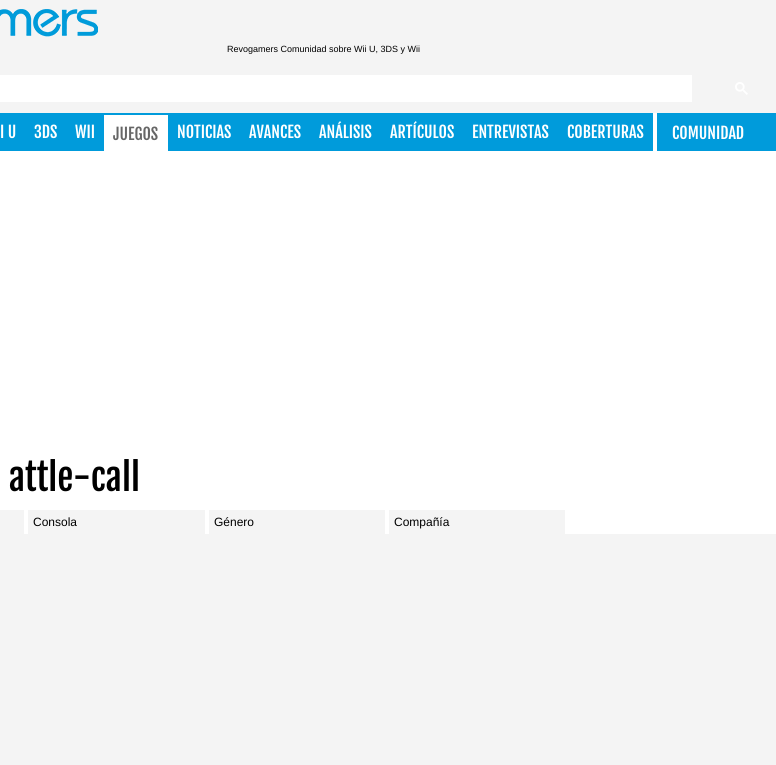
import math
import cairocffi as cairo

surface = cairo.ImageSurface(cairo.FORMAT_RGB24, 776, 765)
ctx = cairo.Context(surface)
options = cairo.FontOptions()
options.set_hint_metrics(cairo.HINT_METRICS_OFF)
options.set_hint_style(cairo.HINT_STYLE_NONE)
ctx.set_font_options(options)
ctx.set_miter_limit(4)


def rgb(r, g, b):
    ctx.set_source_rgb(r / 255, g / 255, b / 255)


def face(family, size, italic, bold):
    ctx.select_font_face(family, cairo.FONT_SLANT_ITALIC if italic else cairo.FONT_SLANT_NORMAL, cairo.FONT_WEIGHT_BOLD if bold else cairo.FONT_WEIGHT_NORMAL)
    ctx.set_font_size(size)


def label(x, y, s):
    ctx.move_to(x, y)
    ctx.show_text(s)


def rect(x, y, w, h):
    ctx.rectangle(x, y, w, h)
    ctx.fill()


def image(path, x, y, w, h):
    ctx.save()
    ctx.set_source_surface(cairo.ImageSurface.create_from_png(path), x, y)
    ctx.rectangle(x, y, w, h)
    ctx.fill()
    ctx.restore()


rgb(244, 244, 244)
ctx.paint()
image('image0.png', 0, 9, 98, 28)
face('Liberation Sans', 9, 0, 0)
rgb(0, 0, 0)
label(227, 52, 'Revogamers Comunidad sobre Wii U, 3DS y Wii')
rgb(255, 255, 255)
rect(0, 75, 692, 27)
image('image1.png', 735, 82, 13, 13)
rgb(0, 155, 219)
rect(0, 113, 776, 38)
face('Fjalla One', 16, 0, 0)
rgb(255, 255, 255)
label(0, 138, 'I U')
label(34, 138, '3DS')
label(75, 138, 'WII')
rect(104, 115, 64, 36)
rgb(102, 102, 102)
label(113, 140, 'JUEGOS')
rgb(255, 255, 255)
label(177, 138, 'NOTICIAS')
label(249, 138, 'AVANCES')
label(319, 138, 'ANÁLISIS')
label(390, 138, 'ARTÍCULOS')
label(472, 138, 'ENTREVISTAS')
label(567, 138, 'COBERTURAS')
rect(653, 113, 4, 38)
label(672, 139, 'COMUNIDAD')
rect(0, 151, 776, 383)
face('Fjalla One', 36, 0, 0)
rgb(0, 0, 0)
label(9, 491, 'attle-call')
rgb(244, 244, 244)
rect(0, 510, 24, 24)
rect(28, 510, 177, 24)
face('Liberation Sans', 12, 0, 0)
rgb(0, 0, 0)
label(33, 526, 'Consola')
rgb(244, 244, 244)
rect(209, 510, 176, 24)
rgb(0, 0, 0)
label(214, 526, 'Género')
rgb(244, 244, 244)
rect(389, 510, 176, 24)
rgb(0, 0, 0)
label(394, 526, 'Compañía')
surface.write_to_png('render.png')
